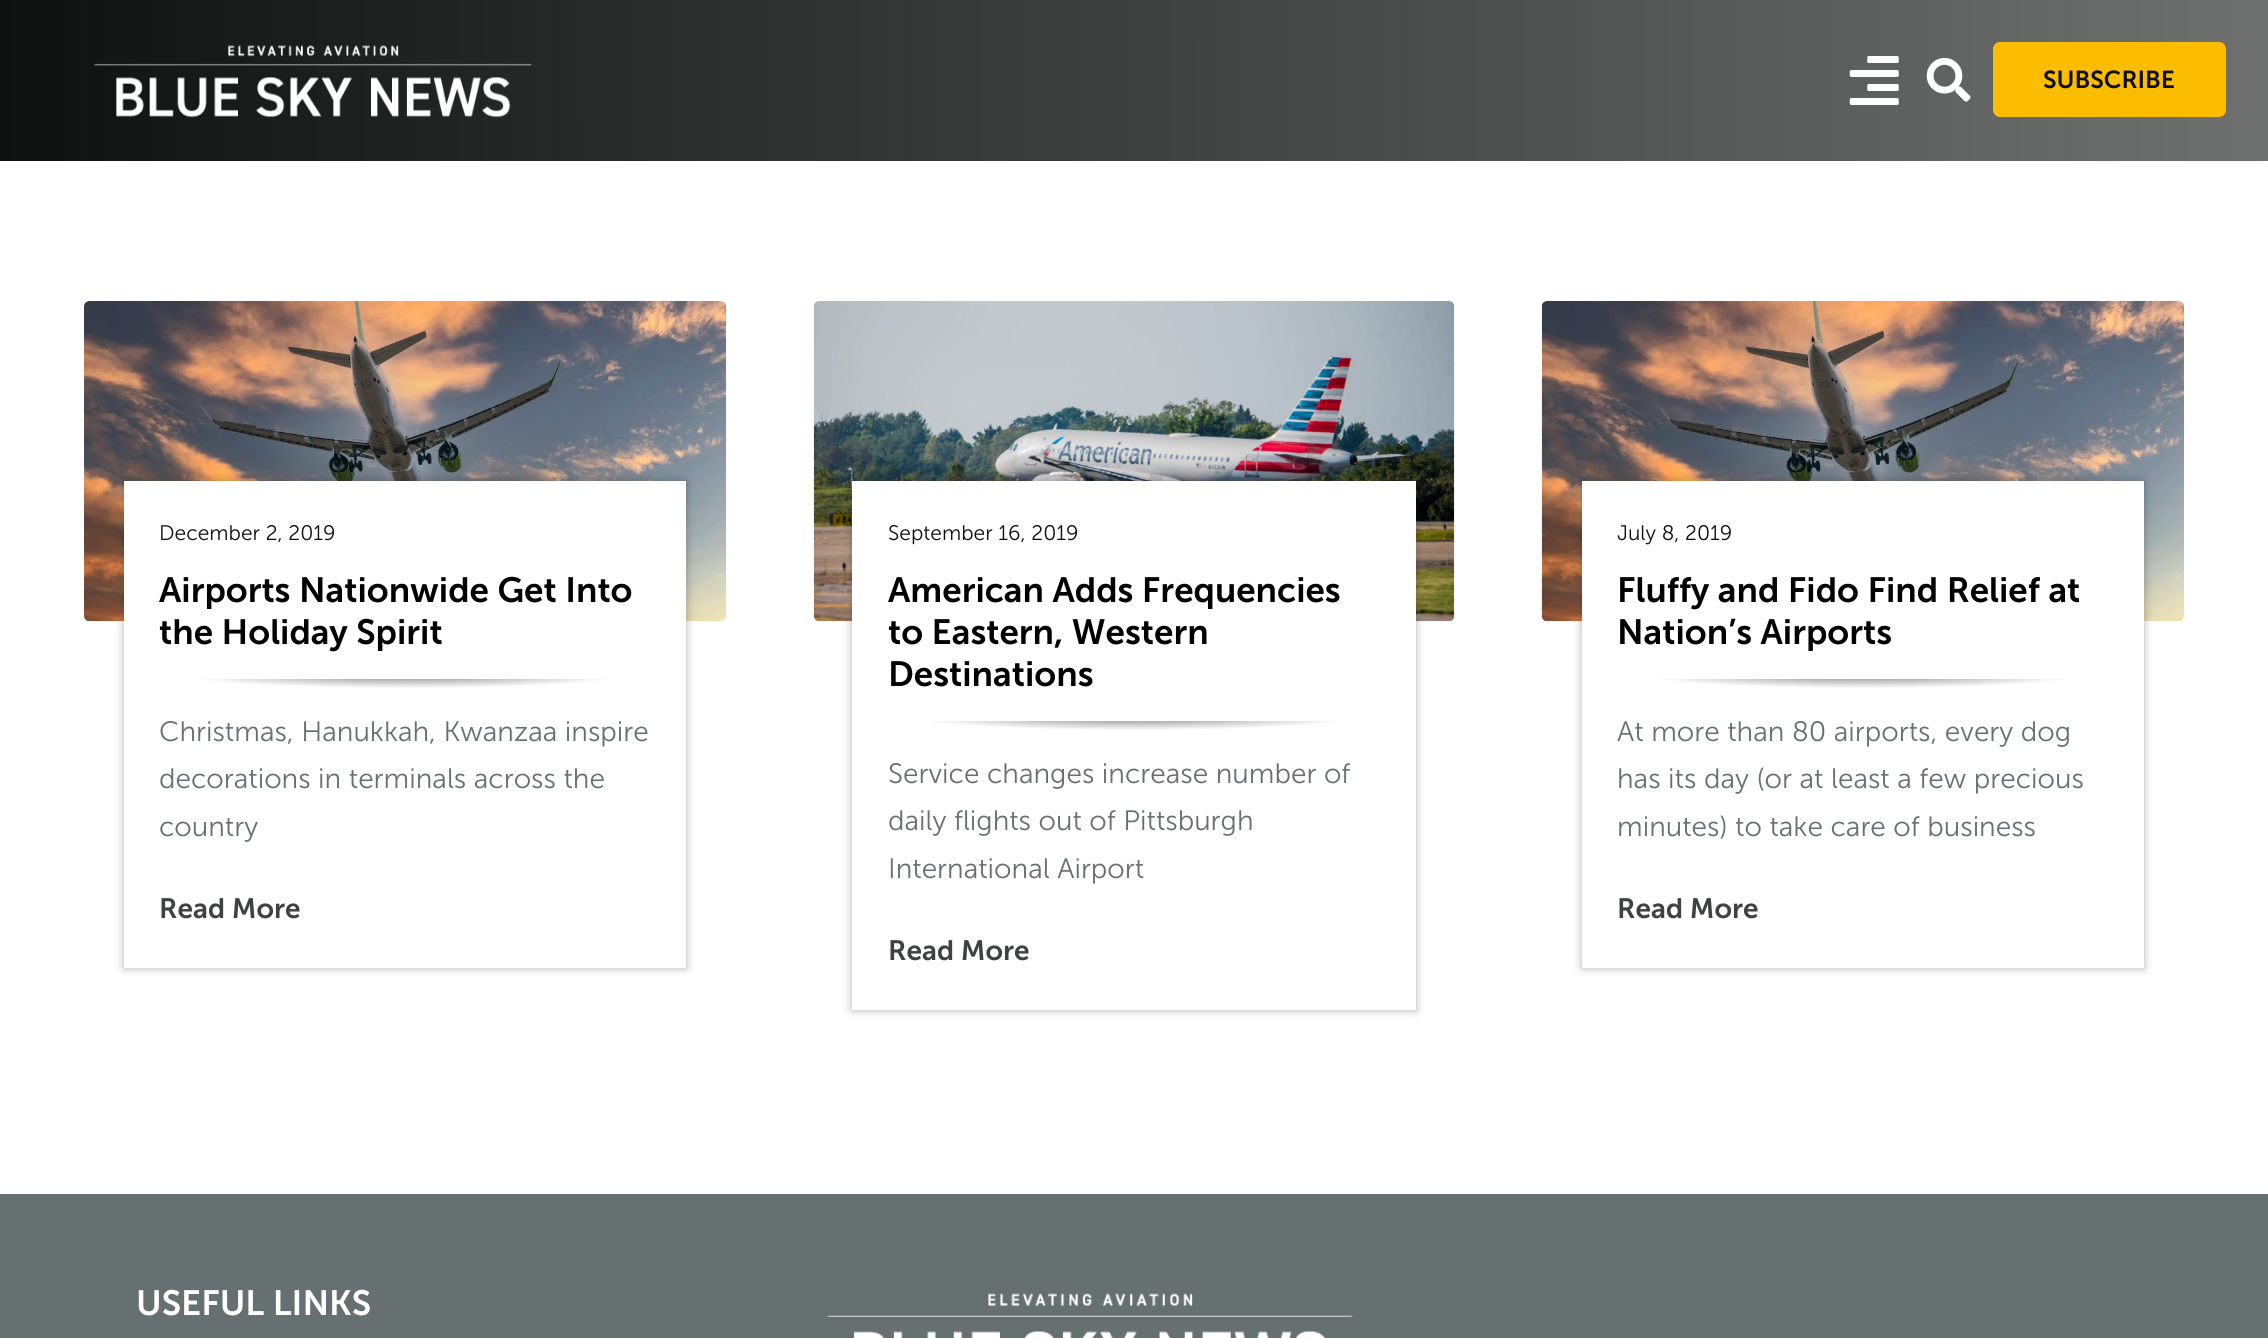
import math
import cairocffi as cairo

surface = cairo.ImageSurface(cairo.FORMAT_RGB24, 2268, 1338)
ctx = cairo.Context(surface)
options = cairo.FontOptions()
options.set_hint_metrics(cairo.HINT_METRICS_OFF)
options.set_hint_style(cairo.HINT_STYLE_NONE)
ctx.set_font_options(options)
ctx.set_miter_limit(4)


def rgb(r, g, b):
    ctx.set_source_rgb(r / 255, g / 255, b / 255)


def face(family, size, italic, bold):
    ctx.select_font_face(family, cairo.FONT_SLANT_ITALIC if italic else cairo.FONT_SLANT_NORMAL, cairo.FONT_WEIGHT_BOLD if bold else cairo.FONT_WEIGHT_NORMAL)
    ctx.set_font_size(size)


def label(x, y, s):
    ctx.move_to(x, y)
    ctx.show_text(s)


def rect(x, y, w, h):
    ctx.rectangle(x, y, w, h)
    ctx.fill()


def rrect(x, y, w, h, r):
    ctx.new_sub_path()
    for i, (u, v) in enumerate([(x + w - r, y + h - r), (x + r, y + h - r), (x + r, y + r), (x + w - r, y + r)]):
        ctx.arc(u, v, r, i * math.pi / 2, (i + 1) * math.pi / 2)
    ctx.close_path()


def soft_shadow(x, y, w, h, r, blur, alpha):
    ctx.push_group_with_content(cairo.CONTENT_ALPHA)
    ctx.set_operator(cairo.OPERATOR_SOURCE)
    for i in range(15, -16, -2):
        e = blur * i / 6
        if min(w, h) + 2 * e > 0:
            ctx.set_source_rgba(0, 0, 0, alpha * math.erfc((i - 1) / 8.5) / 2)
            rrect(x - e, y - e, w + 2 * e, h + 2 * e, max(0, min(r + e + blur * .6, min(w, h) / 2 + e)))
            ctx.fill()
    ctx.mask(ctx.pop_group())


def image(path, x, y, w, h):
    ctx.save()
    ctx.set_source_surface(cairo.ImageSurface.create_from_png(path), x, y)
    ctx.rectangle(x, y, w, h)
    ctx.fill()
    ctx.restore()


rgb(255, 255, 255)
ctx.paint()
gradient = cairo.LinearGradient(0, 81, 2268, 80)
gradient.add_color_stop_rgba(0, 0.059, 0.067, 0.063, 1)
gradient.add_color_stop_rgba(1, 0.435, 0.439, 0.439, 1)
ctx.set_source(gradient)
rect(0, 0, 2268, 161)
image('image0.png', 94, 45, 438, 73)
image('image1.png', 1849, 56, 50, 49)
image('image2.png', 1926, 58, 45, 44)
rgb(252, 188, 0)
rrect(1993, 42, 233, 75, 7)
ctx.fill()
face('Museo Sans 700 SemiBold', 24.5, 0, 0)
rgb(15, 17, 16)
label(2043, 88, 'SUBSCRIBE')
image('image3.png', 84, 301, 643, 321)
rgb(28, 28, 28)
soft_shadow(124, 481, 562, 487, 0, 4.5, 0.35)
rgb(255, 255, 255)
rect(124, 481, 562, 487)
face('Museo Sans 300 Light', 21, 0, 0)
rgb(15, 17, 16)
label(159, 540, 'December 2, 2019')
face('Museo Sans 700 SemiBold', 35, 0, 0)
rgb(0, 0, 0)
label(159, 602, 'Airports Nationwide Get Into')
label(159, 644, 'the Holiday Spirit')
gradient = cairo.RadialGradient(0, 0, 0, 0, 0, 1)
gradient.set_matrix(cairo.Matrix(1 / 348, 0, 0, 1 / 22, -1 * 405 / 348, -1 * 674 / 22))
gradient.add_color_stop_rgba(0, 0.502, 0.502, 0.502, 1)
gradient.add_color_stop_rgba(0.65, 1, 1, 1, 1)
ctx.set_source(gradient)
rect(201, 679, 408, 9)
face('Museo Sans 300 Light', 28, 0, 0)
rgb(103, 112, 112)
label(159, 741, 'Christmas, Hanukkah, Kwanzaa inspire')
label(159, 788, 'decorations in terminals across the')
label(159, 836, 'country')
face('Museo Sans 700 SemiBold', 28, 0, 0)
rgb(63, 65, 66)
label(159, 918, 'Read More')
image('image4.png', 813, 301, 642, 321)
rgb(28, 28, 28)
soft_shadow(852, 481, 564, 529, 0, 4.5, 0.35)
rgb(255, 255, 255)
rect(852, 481, 564, 529)
face('Museo Sans 300 Light', 21, 0, 0)
rgb(15, 17, 16)
label(888, 540, 'September 16, 2019')
face('Museo Sans 700 SemiBold', 35, 0, 0)
rgb(0, 0, 0)
label(888, 602, 'American Adds Frequencies')
label(888, 644, 'to Eastern, Western')
label(888, 686, 'Destinations')
gradient = cairo.RadialGradient(0, 0, 0, 0, 0, 1)
gradient.set_matrix(cairo.Matrix(1 / 349, 0, 0, 1 / 22, -1 * 1134 / 349, -1 * 716 / 22))
gradient.add_color_stop_rgba(0, 0.502, 0.502, 0.502, 1)
gradient.add_color_stop_rgba(0.65, 1, 1, 1, 1)
ctx.set_source(gradient)
rect(930, 721, 408, 9)
face('Museo Sans 300 Light', 28, 0, 0)
rgb(103, 112, 112)
label(888, 783, 'Service changes increase number of')
label(888, 830, 'daily flights out of Pittsburgh')
label(888, 878, 'International Airport')
face('Museo Sans 700 SemiBold', 28, 0, 0)
rgb(63, 65, 66)
label(888, 960, 'Read More')
image('image5.png', 1541, 301, 643, 321)
rgb(28, 28, 28)
soft_shadow(1582, 481, 562, 487, 0, 4.5, 0.35)
rgb(255, 255, 255)
rect(1582, 481, 562, 487)
face('Museo Sans 300 Light', 21, 0, 0)
rgb(15, 17, 16)
label(1617, 540, 'July 8, 2019')
face('Museo Sans 700 SemiBold', 35, 0, 0)
rgb(0, 0, 0)
label(1617, 602, 'Fluffy and Fido Find Relief at')
label(1617, 644, 'Nation’s Airports')
gradient = cairo.RadialGradient(0, 0, 0, 0, 0, 1)
gradient.set_matrix(cairo.Matrix(1 / 348, 0, 0, 1 / 22, -1 * 1863 / 348, -1 * 674 / 22))
gradient.add_color_stop_rgba(0, 0.502, 0.502, 0.502, 1)
gradient.add_color_stop_rgba(0.65, 1, 1, 1, 1)
ctx.set_source(gradient)
rect(1659, 679, 408, 9)
face('Museo Sans 300 Light', 28, 0, 0)
rgb(103, 112, 112)
label(1617, 741, 'At more than 80 airports, every dog')
label(1617, 788, 'has its day (or at least a few precious')
label(1617, 836, 'minutes) to take care of business')
face('Museo Sans 700 SemiBold', 28, 0, 0)
rgb(63, 65, 66)
label(1617, 918, 'Read More')
rgb(103, 112, 112)
rect(0, 1194, 2268, 144)
face('Museo Sans 700 SemiBold', 35, 0, 0)
rgb(255, 255, 255)
label(136, 1315, 'USEFUL LINKS')
image('image6.png', 827, 1293, 526, 45)
surface.write_to_png('render.png')
